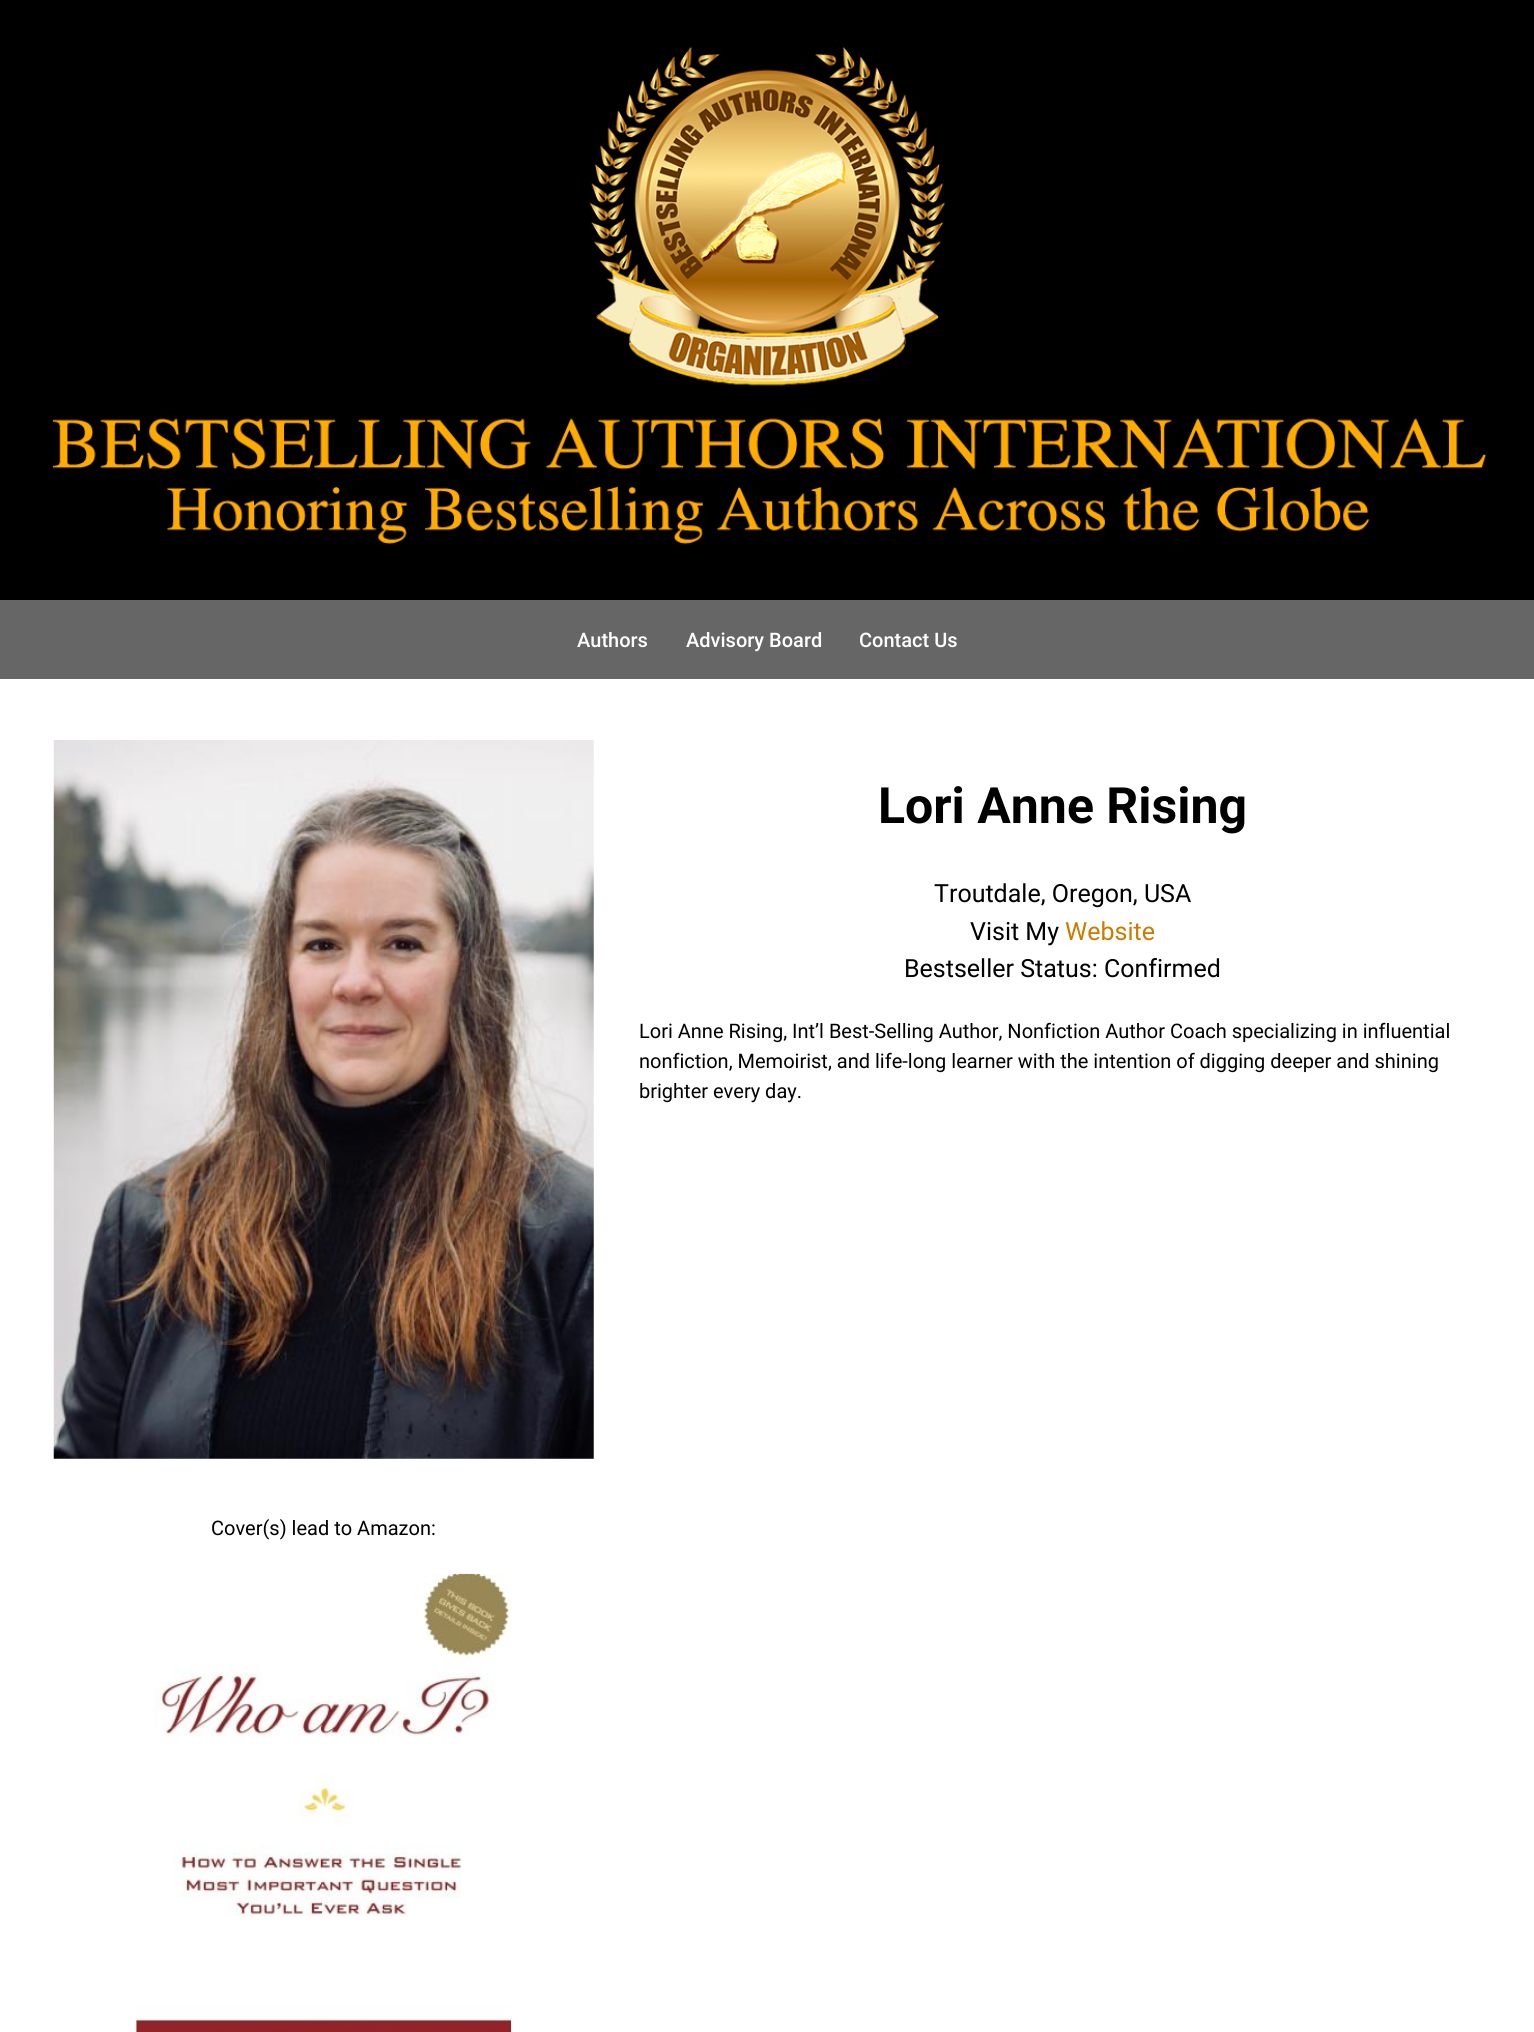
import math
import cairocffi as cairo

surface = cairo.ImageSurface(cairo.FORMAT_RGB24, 1534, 2032)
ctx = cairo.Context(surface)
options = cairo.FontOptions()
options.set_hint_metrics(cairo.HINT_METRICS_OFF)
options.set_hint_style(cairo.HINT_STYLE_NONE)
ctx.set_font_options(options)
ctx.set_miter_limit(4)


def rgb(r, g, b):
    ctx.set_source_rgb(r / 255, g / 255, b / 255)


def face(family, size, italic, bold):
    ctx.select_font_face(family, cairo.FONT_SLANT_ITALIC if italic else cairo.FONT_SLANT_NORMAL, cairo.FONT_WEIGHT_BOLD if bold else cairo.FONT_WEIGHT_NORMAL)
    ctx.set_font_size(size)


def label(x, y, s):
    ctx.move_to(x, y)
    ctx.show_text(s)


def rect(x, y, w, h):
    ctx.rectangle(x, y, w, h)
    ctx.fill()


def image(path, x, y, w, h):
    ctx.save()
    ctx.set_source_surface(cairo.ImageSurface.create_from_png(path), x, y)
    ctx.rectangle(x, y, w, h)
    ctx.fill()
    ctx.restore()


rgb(255, 255, 255)
ctx.paint()
rgb(0, 0, 0)
rect(0, 0, 1534, 600)
image('image0.png', 52, 46, 1435, 498)
rgb(102, 102, 102)
rect(0, 600, 1534, 79)
face('Roboto Medium', 20, 0, 0)
rgb(255, 255, 255)
label(577, 647, 'Authors')
label(686, 647, 'Advisory Board')
label(859, 647, 'Contact Us')
face('Roboto', 50, 0, 1)
rgb(0, 0, 0)
label(878, 823, 'Lori Anne Rising')
face('Roboto', 25, 0, 0)
label(934, 902, 'Troutdale, Oregon, USA')
label(970, 940, 'Visit My')
rgb(204, 122, 0)
label(1065, 940, 'Website')
rgb(0, 0, 0)
label(904, 977, 'Bestseller Status: Confirmed')
face('Roboto', 20, 0, 0)
label(639, 1038, 'Lori Anne Rising, Int’l Best-Selling Author, Nonfiction Author Coach specializing in influential')
label(639, 1068, 'nonfiction, Memoirist, and life-long learner with the intention of digging deeper and shining')
label(639, 1098, 'brighter every day.')
image('image1.png', 53, 740, 541, 719)
label(211, 1535, 'Cover(s) lead to Amazon:')
image('image2.png', 136, 1573, 376, 459)
surface.write_to_png('render.png')
